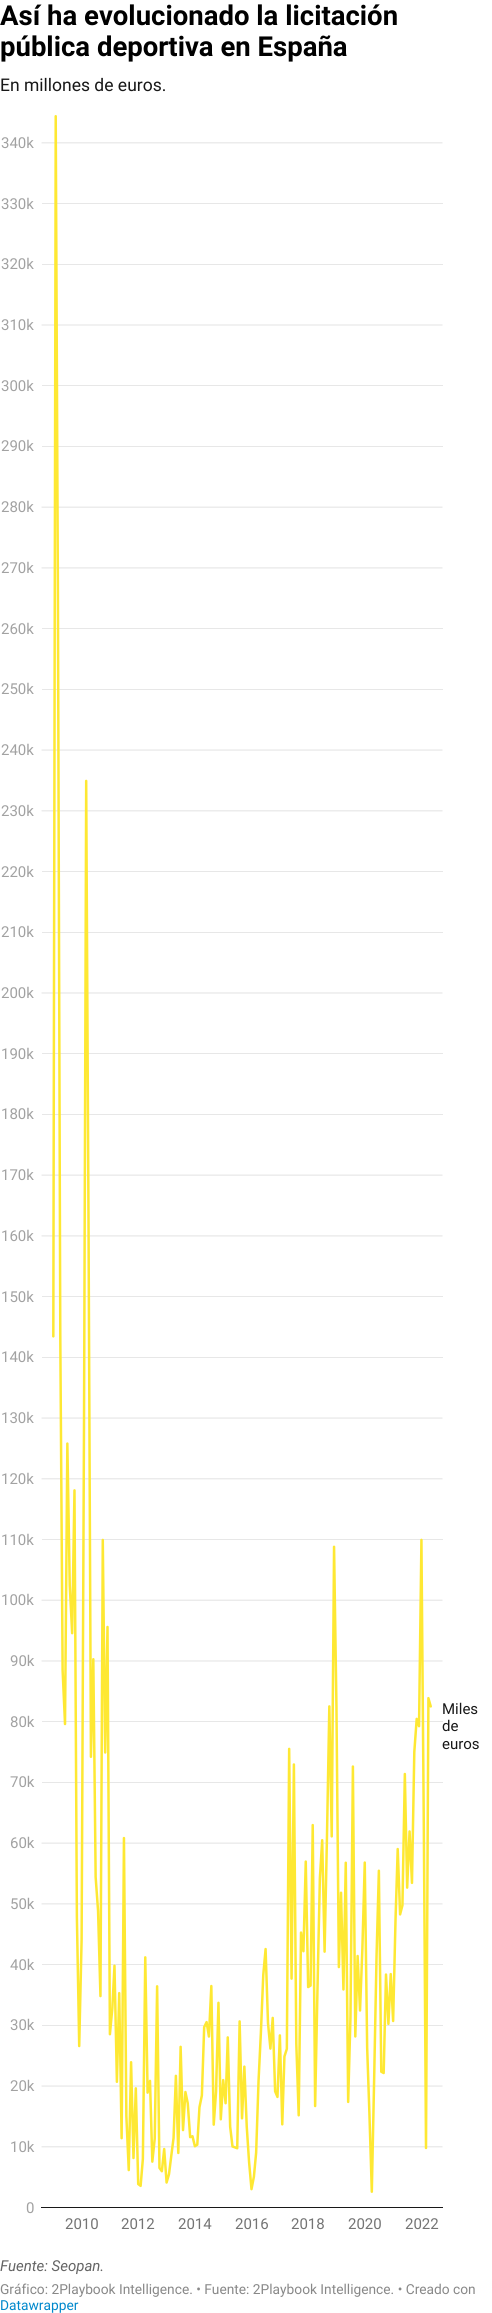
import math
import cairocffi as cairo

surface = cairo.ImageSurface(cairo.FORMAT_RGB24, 492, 2313)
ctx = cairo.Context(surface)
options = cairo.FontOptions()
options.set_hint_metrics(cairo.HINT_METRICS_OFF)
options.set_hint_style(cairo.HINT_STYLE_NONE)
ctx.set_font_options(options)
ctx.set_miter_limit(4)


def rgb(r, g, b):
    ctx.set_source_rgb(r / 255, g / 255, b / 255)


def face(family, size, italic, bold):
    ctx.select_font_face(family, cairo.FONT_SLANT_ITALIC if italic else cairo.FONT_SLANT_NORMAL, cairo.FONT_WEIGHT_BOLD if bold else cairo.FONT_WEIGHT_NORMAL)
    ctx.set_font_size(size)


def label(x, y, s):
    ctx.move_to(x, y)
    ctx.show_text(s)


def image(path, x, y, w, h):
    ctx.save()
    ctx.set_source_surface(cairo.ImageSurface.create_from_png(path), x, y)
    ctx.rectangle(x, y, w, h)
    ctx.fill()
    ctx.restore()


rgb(255, 255, 255)
ctx.paint()
face('Roboto', 27.5, 0, 1)
rgb(0, 0, 0)
label(0, 25, 'Así ha evolucionado la licitación')
label(0, 56, 'pública deportiva en España')
face('Roboto', 17.5, 0, 0)
rgb(24, 24, 24)
label(0, 91, 'En millones de euros.')
image('image0.png', 41, 115, 402, 2093)
face('Roboto', 15, 0, 0)
rgb(162, 162, 162)
label(1, 148, '340k')
label(1, 209, '330k')
label(1, 269, '320k')
label(1, 330, '310k')
label(1, 391, '300k')
label(1, 451, '290k')
label(1, 512, '280k')
label(1, 573, '270k')
label(1, 634, '260k')
label(1, 694, '250k')
label(1, 755, '240k')
label(1, 816, '230k')
label(1, 877, '220k')
label(1, 937, '210k')
label(1, 998, '200k')
label(1, 1059, '190k')
label(1, 1119, '180k')
label(1, 1180, '170k')
label(1, 1241, '160k')
label(1, 1302, '150k')
label(1, 1362, '140k')
label(1, 1423, '130k')
label(1, 1484, '120k')
label(1, 1545, '110k')
label(1, 1605, '100k')
label(10, 1666, '90k')
label(10, 1727, '80k')
label(10, 1787, '70k')
label(10, 1848, '60k')
label(10, 1909, '50k')
label(10, 1970, '40k')
label(10, 2030, '30k')
label(10, 2091, '20k')
label(10, 2152, '10k')
label(26, 2213, '0')
rgb(116, 116, 116)
label(65, 2229, '2010')
label(121, 2229, '2012')
label(178, 2229, '2014')
label(235, 2229, '2016')
label(291, 2229, '2018')
label(348, 2229, '2020')
label(405, 2229, '2022')
rgb(24, 24, 24)
label(442, 1714, 'Miles')
label(442, 1731, 'de')
label(442, 1749, 'euros')
face('Roboto', 15, 1, 0)
rgb(101, 101, 101)
label(0, 2271, 'Fuente: Seopan.')
face('Roboto', 13.75, 0, 0)
rgb(136, 136, 136)
label(0, 2294, 'Gráfico: 2Playbook Intelligence. • Fuente: 2Playbook Intelligence. • Creado con')
rgb(0, 136, 204)
label(0, 2310, 'Datawrapper')
surface.write_to_png('render.png')
